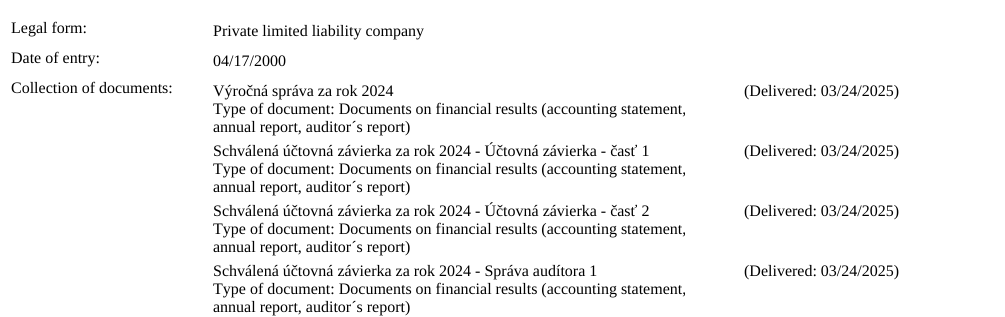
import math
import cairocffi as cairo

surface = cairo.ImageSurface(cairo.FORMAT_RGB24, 1005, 317)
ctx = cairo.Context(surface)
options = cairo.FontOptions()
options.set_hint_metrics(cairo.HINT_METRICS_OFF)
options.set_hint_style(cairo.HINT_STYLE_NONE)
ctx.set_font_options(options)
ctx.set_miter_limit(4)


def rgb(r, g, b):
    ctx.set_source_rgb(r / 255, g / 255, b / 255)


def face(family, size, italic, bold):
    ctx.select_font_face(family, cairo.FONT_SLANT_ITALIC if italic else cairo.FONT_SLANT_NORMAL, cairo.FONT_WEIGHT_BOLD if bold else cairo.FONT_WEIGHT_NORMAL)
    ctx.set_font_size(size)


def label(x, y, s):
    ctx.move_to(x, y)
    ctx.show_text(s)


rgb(255, 255, 255)
ctx.paint()
face('Liberation Serif', 16, 0, 0)
rgb(0, 0, 0)
label(11, 33, 'Legal form:')
label(213, 36, 'Private limited liability company')
label(11, 63, 'Date of entry:')
label(213, 66, '04/17/2000')
label(11, 93, 'Collection of documents:')
label(213, 96, 'Výročná správa za rok 2024')
label(213, 114, 'Type of document: Documents on financial results (accounting statement,')
label(213, 132, 'annual report, auditor´s report)')
label(744, 96, '(Delivered: 03/24/2025)')
label(213, 156, 'Schválená účtovná závierka za rok 2024 - Účtovná závierka - časť 1')
label(213, 174, 'Type of document: Documents on financial results (accounting statement,')
label(213, 192, 'annual report, auditor´s report)')
label(744, 156, '(Delivered: 03/24/2025)')
label(213, 216, 'Schválená účtovná závierka za rok 2024 - Účtovná závierka - časť 2')
label(213, 234, 'Type of document: Documents on financial results (accounting statement,')
label(213, 252, 'annual report, auditor´s report)')
label(744, 216, '(Delivered: 03/24/2025)')
label(213, 276, 'Schválená účtovná závierka za rok 2024 - Správa audítora 1')
label(213, 294, 'Type of document: Documents on financial results (accounting statement,')
label(213, 312, 'annual report, auditor´s report)')
label(744, 276, '(Delivered: 03/24/2025)')
surface.write_to_png('render.png')
